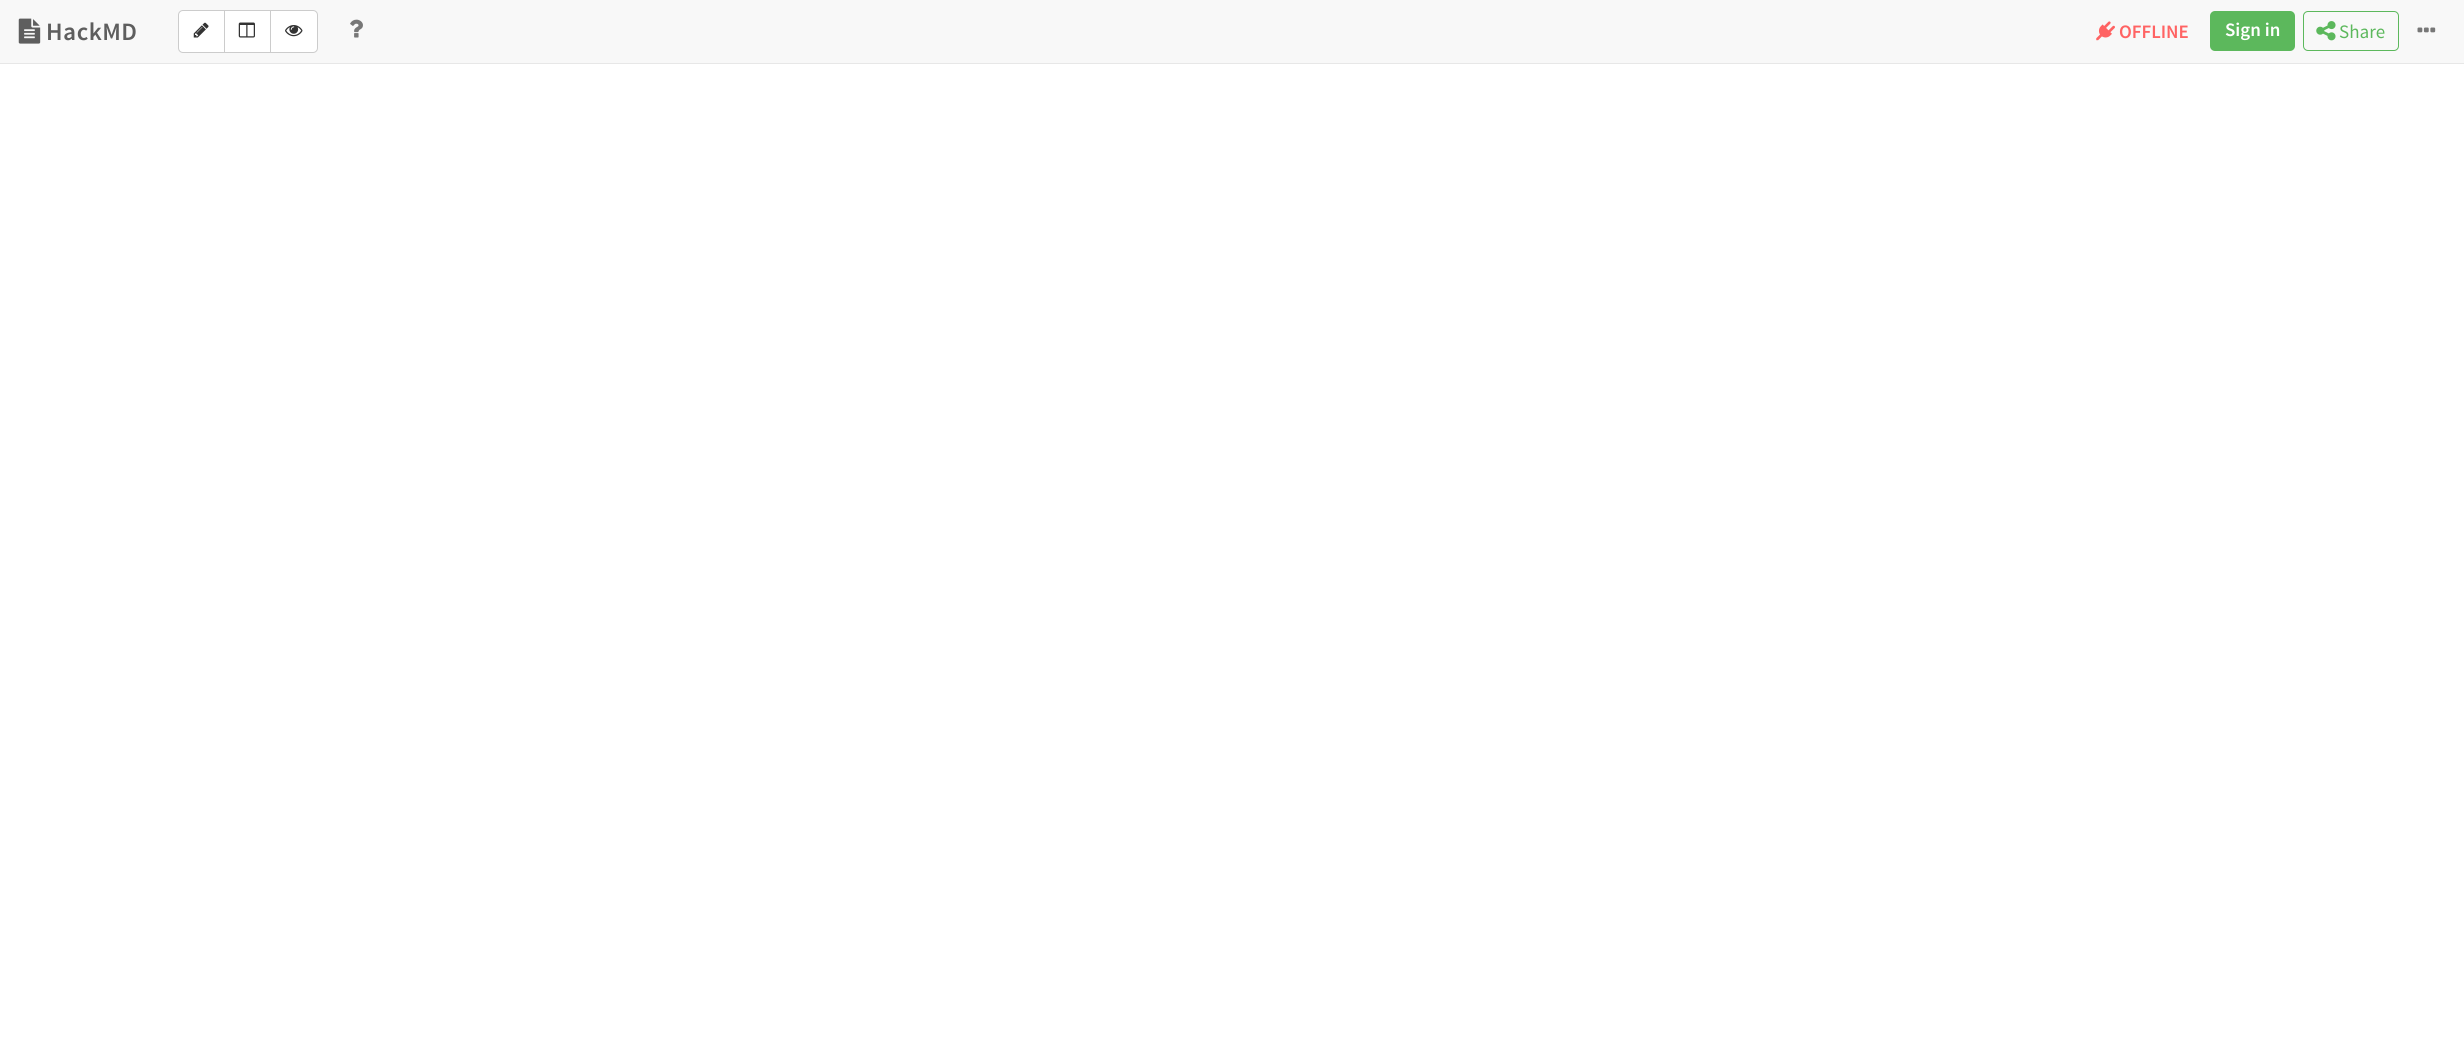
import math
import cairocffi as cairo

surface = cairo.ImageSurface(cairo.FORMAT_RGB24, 2464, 1042)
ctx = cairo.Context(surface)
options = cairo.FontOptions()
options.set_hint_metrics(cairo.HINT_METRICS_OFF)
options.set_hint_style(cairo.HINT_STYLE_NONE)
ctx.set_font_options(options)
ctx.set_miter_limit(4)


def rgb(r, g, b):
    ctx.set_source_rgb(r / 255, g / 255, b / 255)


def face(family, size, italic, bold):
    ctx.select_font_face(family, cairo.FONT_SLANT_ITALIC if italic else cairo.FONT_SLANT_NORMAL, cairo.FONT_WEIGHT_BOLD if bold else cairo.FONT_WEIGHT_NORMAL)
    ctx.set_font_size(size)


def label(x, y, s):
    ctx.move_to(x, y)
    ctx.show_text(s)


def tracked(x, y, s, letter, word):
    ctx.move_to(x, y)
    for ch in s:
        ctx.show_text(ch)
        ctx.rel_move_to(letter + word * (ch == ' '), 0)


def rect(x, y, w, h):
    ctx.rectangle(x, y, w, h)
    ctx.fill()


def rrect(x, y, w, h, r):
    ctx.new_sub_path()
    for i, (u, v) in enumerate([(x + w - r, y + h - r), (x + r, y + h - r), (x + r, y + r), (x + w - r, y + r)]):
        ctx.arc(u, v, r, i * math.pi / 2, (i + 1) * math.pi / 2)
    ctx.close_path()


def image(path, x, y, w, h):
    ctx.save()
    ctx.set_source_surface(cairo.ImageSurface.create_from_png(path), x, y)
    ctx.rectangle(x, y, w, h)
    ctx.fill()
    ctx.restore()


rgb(255, 255, 255)
ctx.paint()
rgb(248, 248, 248)
rect(0, 0, 2464, 63)
rgb(231, 231, 231)
rect(0, 63, 2464, 1)
image('image0.png', 18, 18, 23, 26)
face('Source Sans Pro SemiBold', 25, 0, 0)
rgb(94, 94, 94)
tracked(46, 40, 'HackMD', 0.5, 0)
rgb(255, 255, 255)
ctx.new_path()
ctx.move_to(183, 10.5)
ctx.line_to(224.5, 10.5)
ctx.line_to(224.5, 52.5)
ctx.line_to(183, 52.5)
ctx.curve_to(180.5, 52.5, 178.5, 50.5, 178.5, 48)
ctx.line_to(178.5, 15)
ctx.curve_to(178.5, 12.5, 180.5, 10.5, 183, 10.5)
ctx.close_path()
ctx.fill_preserve()
rgb(204, 204, 204)
ctx.set_line_width(1)
ctx.stroke()
image('image1.png', 193, 22, 16, 16)
rgb(255, 255, 255)
ctx.rectangle(224.5, 10.5, 46, 42)
ctx.fill_preserve()
rgb(204, 204, 204)
ctx.stroke()
image('image2.png', 238, 22, 17, 16)
rgb(255, 255, 255)
ctx.new_path()
ctx.move_to(270.5, 10.5)
ctx.line_to(313, 10.5)
ctx.curve_to(315.5, 10.5, 317.5, 12.5, 317.5, 15)
ctx.line_to(317.5, 48)
ctx.curve_to(317.5, 50.5, 315.5, 52.5, 313, 52.5)
ctx.line_to(270.5, 52.5)
ctx.close_path()
ctx.fill_preserve()
rgb(204, 204, 204)
ctx.stroke()
image('image3.png', 285, 25, 18, 12)
image('image4.png', 350, 19, 13, 19)
image('image5.png', 2096, 21, 19, 20)
face('Source Sans Pro SemiBold', 19, 0, 0)
rgb(255, 99, 99)
label(2119, 38, 'OFFLINE')
rgb(92, 184, 92)
rrect(2210, 11, 85, 40, 5)
ctx.fill()
rgb(255, 255, 255)
label(2225, 36, 'Sign in')
rrect(2303.5, 11.5, 95, 39, 4.5)
rgb(92, 184, 92)
ctx.stroke()
image('image6.png', 2316, 21, 20, 20)
face('Source Sans Pro', 19, 0, 0)
label(2339, 38, 'Share')
image('image7.png', 2417, 27, 19, 6)
surface.write_to_png('render.png')
